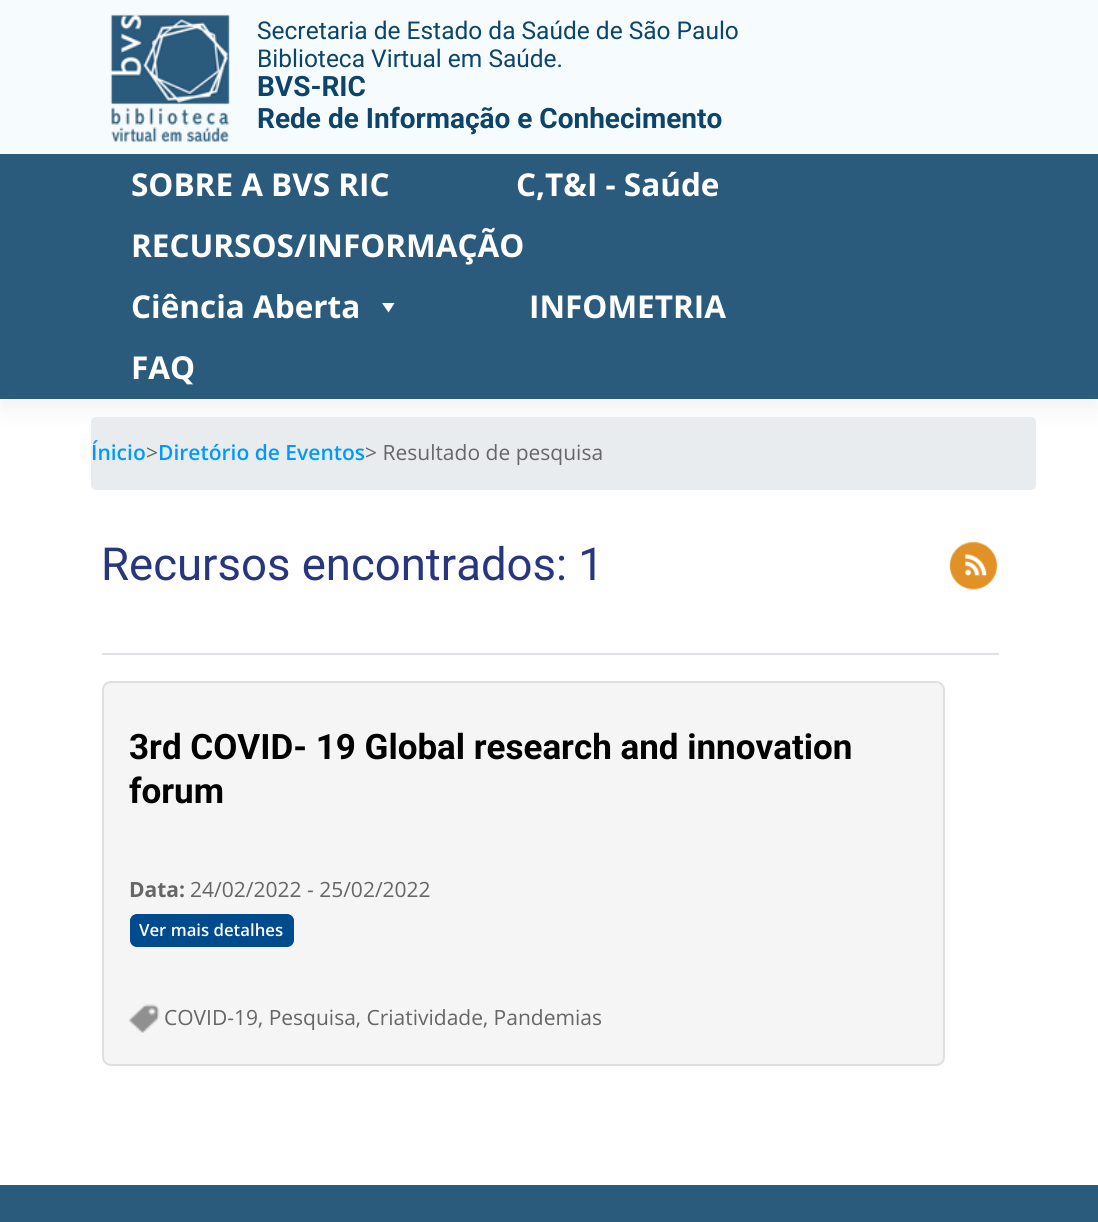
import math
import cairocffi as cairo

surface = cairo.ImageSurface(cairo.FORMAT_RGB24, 1098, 1222)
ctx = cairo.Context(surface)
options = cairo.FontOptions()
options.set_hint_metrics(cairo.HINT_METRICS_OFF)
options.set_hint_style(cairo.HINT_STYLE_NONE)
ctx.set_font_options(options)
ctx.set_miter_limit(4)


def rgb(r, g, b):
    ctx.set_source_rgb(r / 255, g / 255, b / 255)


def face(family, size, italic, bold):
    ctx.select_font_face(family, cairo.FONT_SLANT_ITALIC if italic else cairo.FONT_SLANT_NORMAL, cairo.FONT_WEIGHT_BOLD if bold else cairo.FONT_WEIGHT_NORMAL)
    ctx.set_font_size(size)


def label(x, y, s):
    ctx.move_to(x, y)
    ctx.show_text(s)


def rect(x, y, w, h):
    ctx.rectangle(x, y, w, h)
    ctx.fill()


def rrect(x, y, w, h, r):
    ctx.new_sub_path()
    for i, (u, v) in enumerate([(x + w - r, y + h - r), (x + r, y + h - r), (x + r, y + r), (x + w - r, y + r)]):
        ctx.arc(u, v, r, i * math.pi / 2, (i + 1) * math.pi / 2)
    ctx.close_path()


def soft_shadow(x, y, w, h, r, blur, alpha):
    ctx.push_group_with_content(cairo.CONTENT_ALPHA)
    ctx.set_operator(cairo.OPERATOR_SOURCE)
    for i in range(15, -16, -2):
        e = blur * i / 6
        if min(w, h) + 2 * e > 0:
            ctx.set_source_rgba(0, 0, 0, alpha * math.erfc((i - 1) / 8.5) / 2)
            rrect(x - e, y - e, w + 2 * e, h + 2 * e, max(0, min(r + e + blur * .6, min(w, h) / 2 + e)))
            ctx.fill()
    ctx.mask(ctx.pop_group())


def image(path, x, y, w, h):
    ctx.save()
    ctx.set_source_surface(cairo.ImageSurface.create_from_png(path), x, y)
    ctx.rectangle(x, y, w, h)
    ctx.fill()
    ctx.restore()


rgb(255, 255, 255)
ctx.paint()
rgb(0, 0, 0)
soft_shadow(0, 11, 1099, 399, 0, 11, 0.05)
rgb(246, 251, 254)
rect(0, 0, 1098, 154)
image('image0.png', 110, 14, 120, 129)
face('Roboto', 24.5, 0, 0)
rgb(12, 68, 107)
label(257, 39, 'Secretaria de Estado da Saúde de São Paulo')
label(257, 67, 'Biblioteca Virtual em Saúde.')
face('Roboto', 28, 0, 1)
label(257, 96, 'BVS-RIC')
label(257, 128, 'Rede de Informação e Conhecimento')
rgb(43, 91, 124)
rect(0, 154, 1098, 245)
face('Open Sans', 31.5, 0, 1)
rgb(255, 255, 255)
label(131, 196, 'SOBRE A BVS RIC')
label(516, 196, 'C,T&I - Saúde')
label(131, 257, 'RECURSOS/INFORMAÇÃO')
label(131, 318, 'Ciência Aberta')
ctx.new_path()
ctx.move_to(394.5, 303)
ctx.line_to(388.5, 312.5)
ctx.line_to(382, 303)
ctx.close_path()
ctx.fill()
label(529, 318, 'INFOMETRIA')
label(131, 379, 'FAQ')
rgb(233, 236, 239)
rrect(91, 417, 945, 73, 5)
ctx.fill()
face('Open Sans SemiBold', 21, 0, 0)
rgb(0, 153, 255)
label(91, 460, 'Ínicio')
face('Open Sans', 21, 0, 0)
rgb(102, 102, 102)
label(146, 460, '>')
face('Open Sans SemiBold', 21, 0, 0)
rgb(0, 153, 255)
label(158, 460, 'Diretório de Eventos')
face('Open Sans', 21, 0, 0)
rgb(102, 102, 102)
label(365, 460, '> Resultado de pesquisa')
rgb(222, 226, 230)
rect(102, 653, 897, 2)
face('Roboto', 45.5, 0, 0)
rgb(40, 54, 125)
label(101, 580, 'Recursos encontrados: 1')
image('image1.png', 949, 541, 49, 49)
rgb(245, 245, 245)
rrect(103, 682, 841, 383, 8)
ctx.fill_preserve()
rgb(223, 223, 223)
ctx.stroke()
face('Roboto', 35, 0, 1)
rgb(0, 0, 0)
label(129, 759, '3rd COVID- 19 Global research and innovation')
label(129, 803, 'forum')
face('Open Sans', 21, 0, 1)
rgb(102, 102, 102)
label(129, 897, 'Data:')
face('Open Sans', 21, 0, 0)
label(190, 897, '24/02/2022 - 25/02/2022')
rgb(0, 74, 142)
rrect(130, 914, 164, 33, 7)
ctx.fill()
face('Open Sans SemiBold', 16.75, 0, 0)
rgb(255, 255, 255)
label(139, 936, 'Ver mais detalhes')
image('image2.png', 129, 1004, 31, 29)
face('Open Sans', 21, 0, 0)
rgb(102, 102, 102)
label(164, 1025, 'COVID-19, Pesquisa, Criatividade, Pandemias')
rgb(43, 91, 124)
rect(0, 1185, 1098, 37)
surface.write_to_png('render.png')
